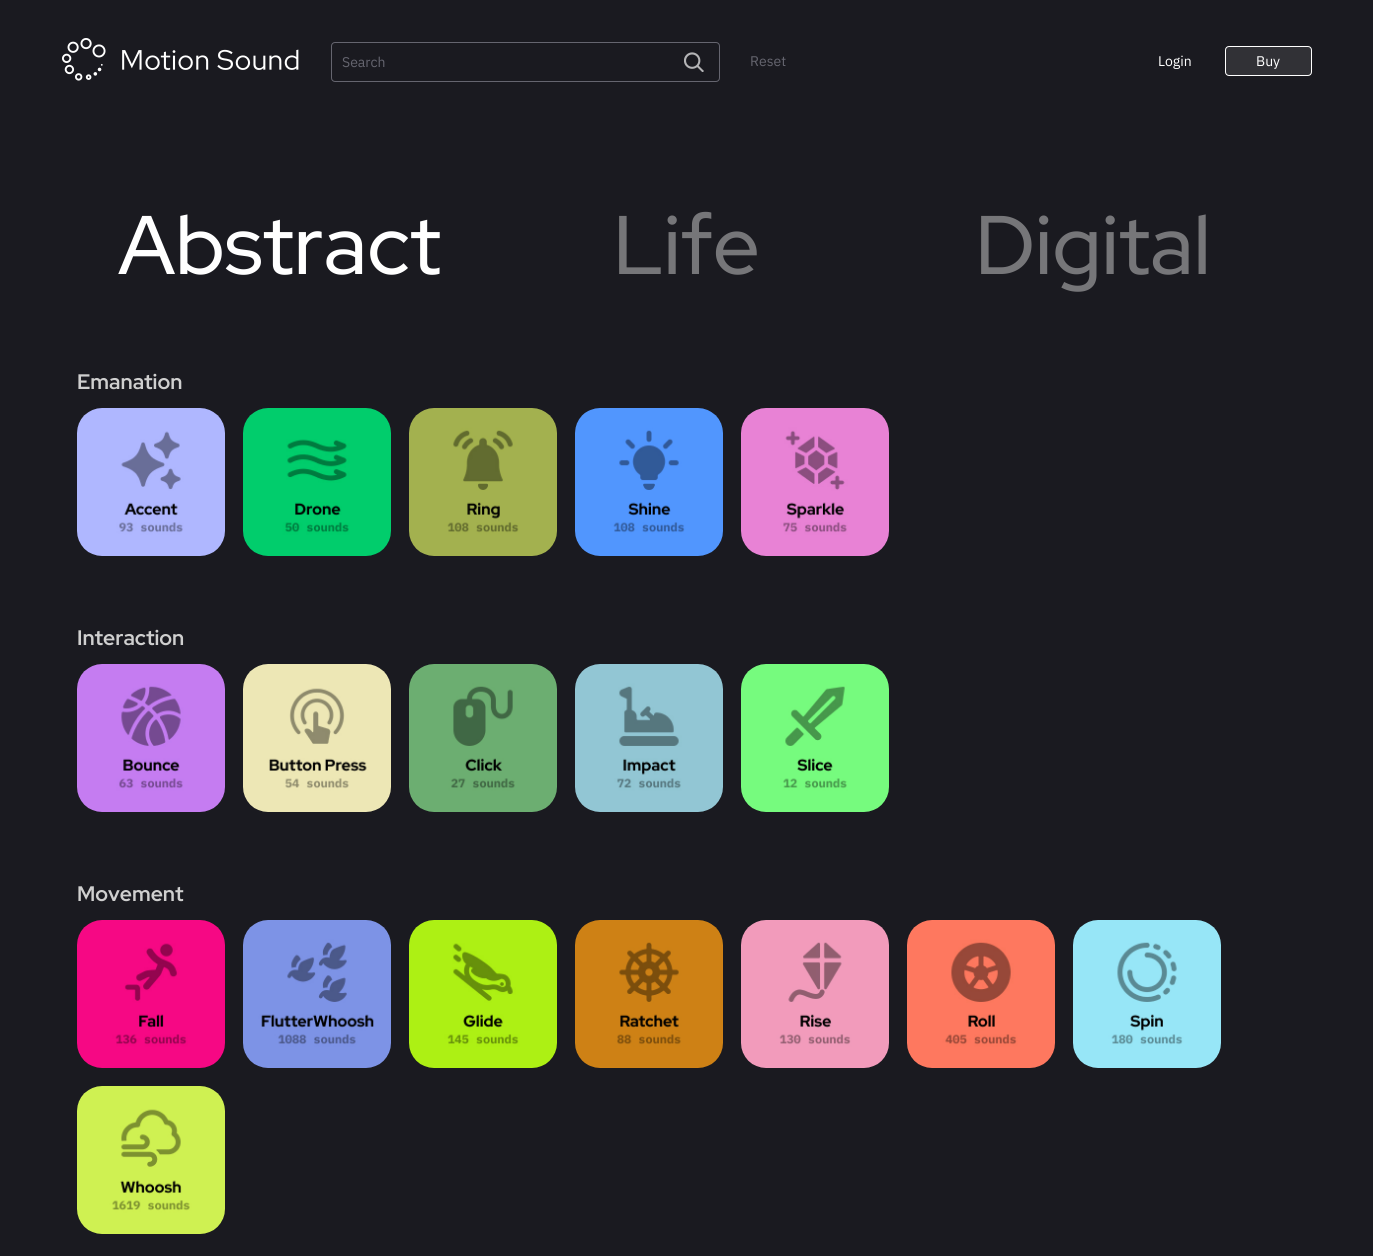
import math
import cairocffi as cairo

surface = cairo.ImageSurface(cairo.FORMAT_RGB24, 1373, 1256)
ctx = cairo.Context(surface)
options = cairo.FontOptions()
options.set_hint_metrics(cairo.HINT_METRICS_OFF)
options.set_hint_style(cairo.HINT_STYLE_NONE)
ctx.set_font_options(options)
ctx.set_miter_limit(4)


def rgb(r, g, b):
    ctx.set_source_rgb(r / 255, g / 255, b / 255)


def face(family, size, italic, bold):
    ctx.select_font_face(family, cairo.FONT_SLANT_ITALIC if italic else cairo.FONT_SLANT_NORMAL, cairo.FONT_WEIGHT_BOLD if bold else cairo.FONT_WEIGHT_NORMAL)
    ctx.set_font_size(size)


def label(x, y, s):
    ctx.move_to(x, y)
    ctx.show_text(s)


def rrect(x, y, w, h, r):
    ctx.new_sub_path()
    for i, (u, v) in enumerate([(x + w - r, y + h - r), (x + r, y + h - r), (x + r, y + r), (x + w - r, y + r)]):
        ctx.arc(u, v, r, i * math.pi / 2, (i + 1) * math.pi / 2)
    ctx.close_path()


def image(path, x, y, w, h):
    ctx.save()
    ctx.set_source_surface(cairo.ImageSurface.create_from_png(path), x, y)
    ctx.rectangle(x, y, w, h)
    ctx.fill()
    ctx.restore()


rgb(26, 26, 32)
ctx.paint()
image('image0.png', 62, 38, 237, 43)
rrect(331.5, 42.5, 388, 39, 3.5)
rgb(101, 101, 111)
ctx.set_line_width(1)
ctx.stroke()
face('IBM Plex Sans', 14, 0, 0)
label(342, 67, 'Search')
image('image1.png', 684, 52, 20, 20)
label(750, 66, 'Reset')
rgb(255, 255, 255)
label(1158, 66, 'Login')
rgb(49, 49, 54)
rrect(1225.5, 46.5, 86, 29, 3.5)
ctx.fill_preserve()
rgb(255, 255, 255)
ctx.stroke()
label(1256, 66, 'Buy')
face('Red Hat Display Medium', 83, 0, 0)
label(118, 274, 'Abstract')
rgb(118, 118, 121)
label(613, 274, 'Life')
label(975, 274, 'Digital')
face('Red Hat Display', 21, 0, 1)
rgb(207, 207, 207)
label(77, 389, 'Emanation')
image('image2.png', 77, 408, 148, 148)
image('image3.png', 243, 408, 148, 148)
image('image4.png', 409, 408, 148, 148)
image('image5.png', 575, 408, 148, 148)
image('image6.png', 741, 408, 148, 148)
label(77, 645, 'Interaction')
image('image7.png', 77, 664, 148, 148)
image('image8.png', 243, 664, 148, 148)
image('image9.png', 409, 664, 148, 148)
image('image10.png', 575, 664, 148, 148)
image('image11.png', 741, 664, 148, 148)
label(77, 901, 'Movement')
image('image12.png', 77, 920, 148, 148)
image('image13.png', 243, 920, 148, 148)
image('image14.png', 409, 920, 148, 148)
image('image15.png', 575, 920, 148, 148)
image('image16.png', 741, 920, 148, 148)
image('image17.png', 907, 920, 148, 148)
image('image18.png', 1073, 920, 148, 148)
image('image19.png', 77, 1086, 148, 148)
surface.write_to_png('render.png')
